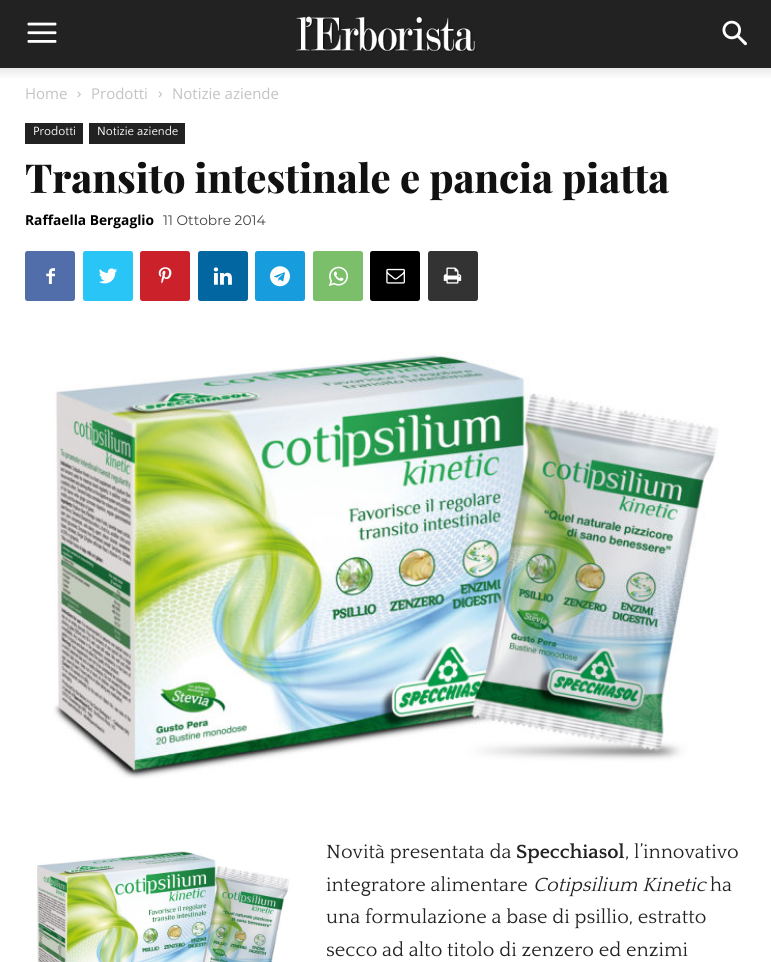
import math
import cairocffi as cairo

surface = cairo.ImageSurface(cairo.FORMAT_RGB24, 771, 962)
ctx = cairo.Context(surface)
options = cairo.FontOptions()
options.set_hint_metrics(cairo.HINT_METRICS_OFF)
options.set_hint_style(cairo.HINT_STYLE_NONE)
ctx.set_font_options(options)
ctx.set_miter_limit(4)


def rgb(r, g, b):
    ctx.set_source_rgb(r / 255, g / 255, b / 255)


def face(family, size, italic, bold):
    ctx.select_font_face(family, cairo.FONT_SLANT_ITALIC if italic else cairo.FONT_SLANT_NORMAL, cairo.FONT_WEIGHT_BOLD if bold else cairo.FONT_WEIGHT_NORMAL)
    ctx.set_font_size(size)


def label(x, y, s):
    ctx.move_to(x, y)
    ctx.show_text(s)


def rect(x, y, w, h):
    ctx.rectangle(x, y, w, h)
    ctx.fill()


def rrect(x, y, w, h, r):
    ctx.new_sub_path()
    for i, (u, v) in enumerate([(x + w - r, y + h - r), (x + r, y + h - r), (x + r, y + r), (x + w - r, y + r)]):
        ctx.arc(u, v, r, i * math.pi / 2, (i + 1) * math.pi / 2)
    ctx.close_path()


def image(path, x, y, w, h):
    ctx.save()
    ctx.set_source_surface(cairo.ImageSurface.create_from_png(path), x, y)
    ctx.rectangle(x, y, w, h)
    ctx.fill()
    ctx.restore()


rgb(255, 255, 255)
ctx.paint()
rgb(34, 34, 34)
rect(0, 0, 771, 68)
image('image0.png', 27, 22, 30, 21)
image('image1.png', 296, 16, 180, 36)
image('image2.png', 722, 20, 25, 26)
image('image3.png', 0, 68, 771, 10)
face('Open Sans', 15, 0, 0)
rgb(195, 195, 195)
label(25, 99, 'Home')
image('image4.png', 77, 91, 4, 7)
label(91, 99, 'Prodotti')
image('image5.png', 158, 91, 4, 7)
label(172, 99, 'Notizie aziende')
rgb(34, 34, 34)
rect(25, 123, 58, 21)
face('Quattrocento Sans', 12.5, 0, 0)
rgb(255, 255, 255)
label(33, 135, 'Prodotti')
rgb(34, 34, 34)
rect(89, 123, 96, 21)
rgb(255, 255, 255)
label(97, 135, 'Notizie aziende')
face('Playfair Display ExtraBold', 40, 0, 0)
rgb(17, 17, 17)
label(25, 193, 'Transito intestinale e pancia piatta')
face('Open Sans', 13.75, 0, 1)
rgb(0, 0, 0)
label(25, 225, 'Raffaella Bergaglio')
face('Montserrat', 13.75, 0, 0)
rgb(68, 68, 68)
label(163, 225, '11 Ottobre 2014')
rgb(81, 110, 171)
rrect(25, 251, 50, 50, 2.5)
ctx.fill()
image('image6.png', 46, 268, 9, 16)
rgb(41, 197, 246)
rrect(83, 251, 50, 50, 2.5)
ctx.fill()
image('image7.png', 99, 268, 18, 16)
rgb(202, 33, 42)
rrect(140, 251, 50, 50, 2.5)
ctx.fill()
image('image8.png', 158, 267, 14, 17)
rgb(2, 102, 160)
rrect(198, 251, 50, 50, 2.5)
ctx.fill()
image('image9.png', 213, 267, 19, 18)
rgb(23, 156, 222)
rrect(255, 251, 50, 50, 2.5)
ctx.fill()
image('image10.png', 270, 266, 20, 21)
rgb(123, 191, 106)
rrect(313, 251, 50, 50, 2.5)
ctx.fill()
image('image11.png', 328, 266, 20, 20)
rgb(0, 0, 0)
rrect(370, 251, 50, 50, 2.5)
ctx.fill()
image('image12.png', 386, 268, 19, 16)
rgb(51, 51, 51)
rrect(428, 251, 50, 50, 2.5)
ctx.fill()
image('image13.png', 443, 267, 19, 17)
image('image14.png', 53, 352, 666, 427)
image('image15.png', 37, 851, 253, 111)
face('Quattrocento', 20, 0, 0)
rgb(34, 34, 34)
label(326, 858, 'Novità presentata da')
face('Quattrocento', 20, 0, 1)
label(516, 858, 'Specchiasol')
face('Quattrocento', 20, 0, 0)
label(625, 858, ', l’innovativo')
label(326, 891, 'integratore alimentare')
face('Quattrocento', 20, 1, 0)
label(533, 891, 'Cotipsilium Kinetic')
face('Quattrocento', 20, 0, 0)
label(710, 891, 'ha')
label(326, 923, 'una formulazione a base di psillio, estratto')
label(326, 956, 'secco ad alto titolo di zenzero ed enzimi')
surface.write_to_png('render.png')
